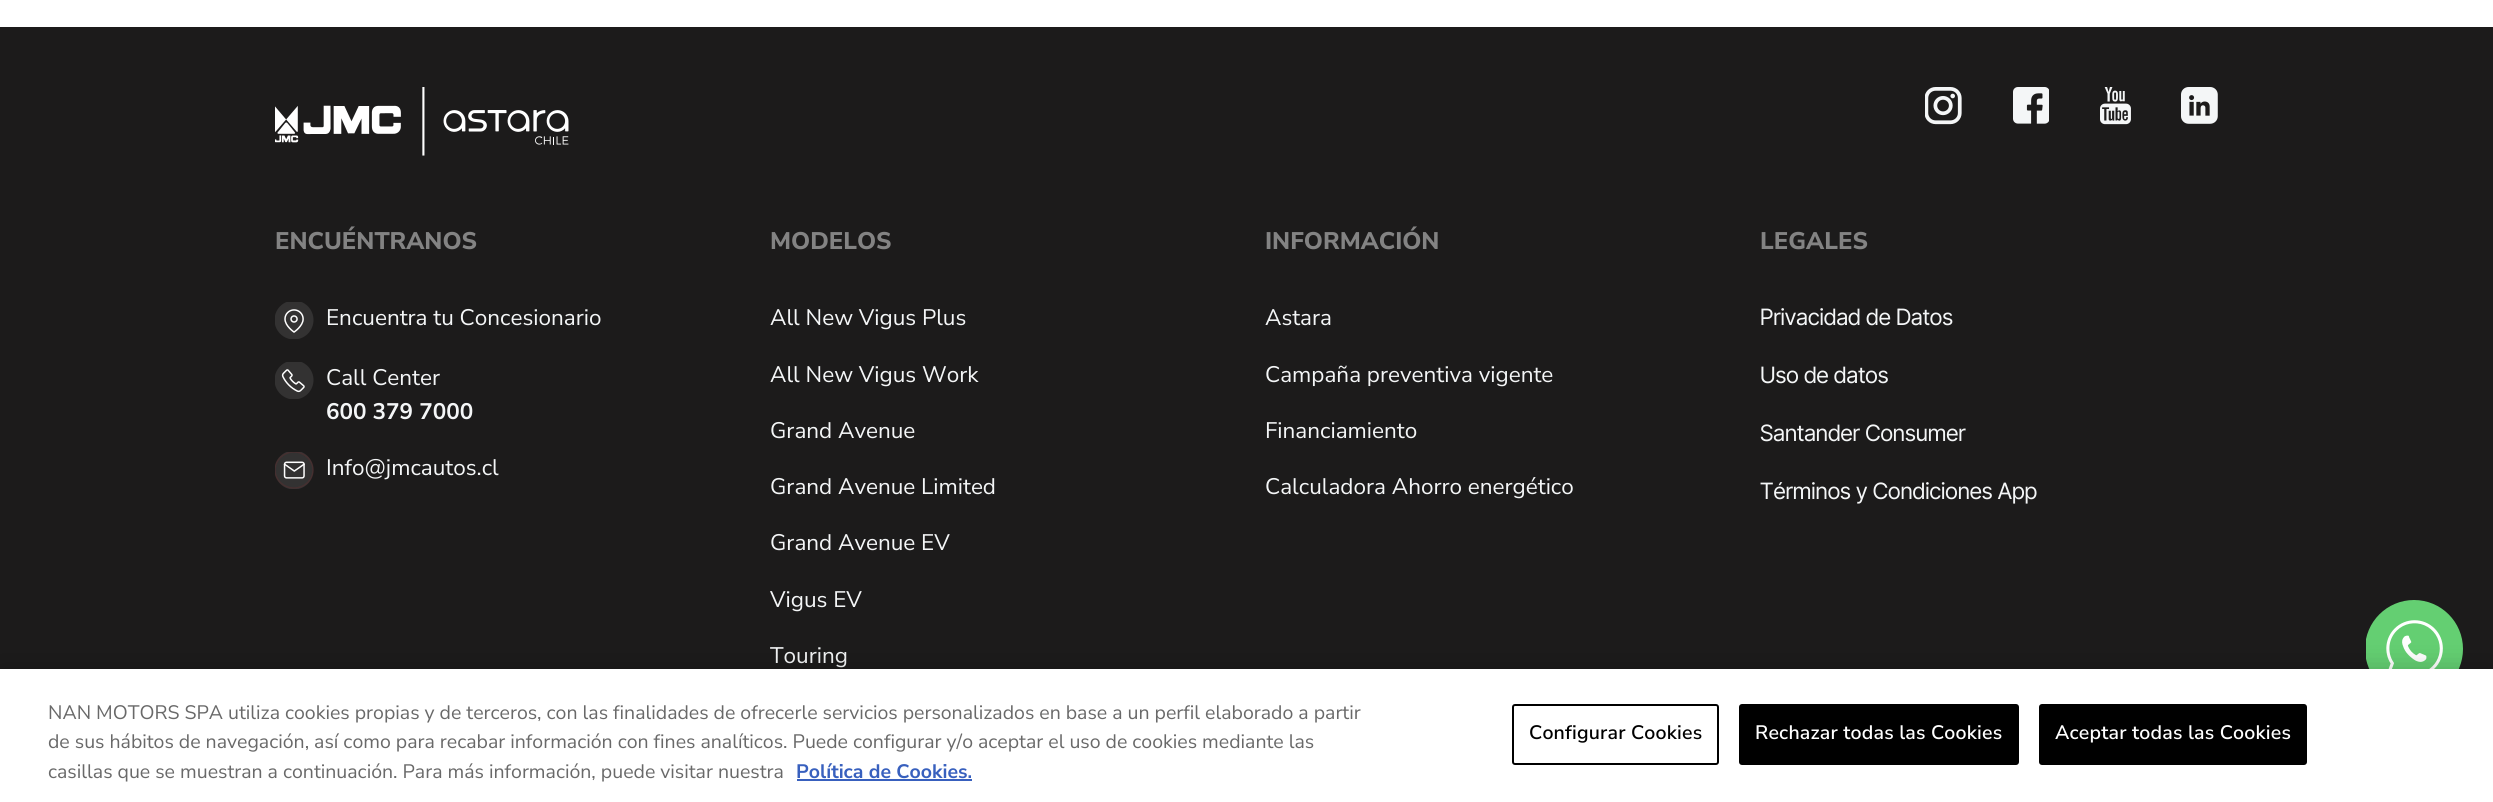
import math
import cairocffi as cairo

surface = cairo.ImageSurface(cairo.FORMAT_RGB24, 2493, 802)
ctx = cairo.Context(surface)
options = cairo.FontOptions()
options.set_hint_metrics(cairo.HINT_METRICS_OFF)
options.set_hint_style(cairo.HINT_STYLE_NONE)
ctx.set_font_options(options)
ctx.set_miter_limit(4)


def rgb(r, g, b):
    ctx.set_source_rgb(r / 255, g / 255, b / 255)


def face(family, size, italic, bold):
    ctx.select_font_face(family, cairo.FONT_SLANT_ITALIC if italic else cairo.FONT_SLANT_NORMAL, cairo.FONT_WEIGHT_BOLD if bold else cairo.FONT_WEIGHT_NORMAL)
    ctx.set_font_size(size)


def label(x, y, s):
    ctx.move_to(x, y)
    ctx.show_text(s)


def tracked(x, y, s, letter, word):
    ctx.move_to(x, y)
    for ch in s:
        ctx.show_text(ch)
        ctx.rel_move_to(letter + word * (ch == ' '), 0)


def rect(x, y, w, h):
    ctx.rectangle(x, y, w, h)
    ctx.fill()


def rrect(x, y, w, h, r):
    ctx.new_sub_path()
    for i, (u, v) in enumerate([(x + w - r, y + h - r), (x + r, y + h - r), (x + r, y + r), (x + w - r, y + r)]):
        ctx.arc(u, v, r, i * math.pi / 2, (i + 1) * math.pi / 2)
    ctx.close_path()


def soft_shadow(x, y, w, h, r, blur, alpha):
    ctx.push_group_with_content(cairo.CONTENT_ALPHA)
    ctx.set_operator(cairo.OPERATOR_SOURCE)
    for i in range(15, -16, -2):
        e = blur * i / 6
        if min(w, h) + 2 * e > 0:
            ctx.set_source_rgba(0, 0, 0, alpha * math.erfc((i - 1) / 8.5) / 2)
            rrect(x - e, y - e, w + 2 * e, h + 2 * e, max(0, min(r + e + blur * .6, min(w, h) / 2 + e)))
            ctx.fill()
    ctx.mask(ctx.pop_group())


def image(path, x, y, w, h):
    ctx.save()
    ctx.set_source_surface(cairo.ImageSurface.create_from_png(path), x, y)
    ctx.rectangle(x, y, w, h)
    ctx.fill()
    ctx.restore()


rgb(255, 255, 255)
ctx.paint()
rgb(28, 27, 27)
rect(0, 27, 2493, 642)
image('image0.png', 275, 87, 294, 69)
image('image1.png', 1925, 87, 37, 38)
image('image2.png', 2013, 87, 36, 37)
image('image3.png', 2100, 87, 31, 38)
image('image4.png', 2181, 87, 37, 37)
face('Nunito Sans ExtraBold', 24, 0, 0)
rgb(131, 131, 131)
label(275, 249, 'ENCUÉNTRANOS')
image('image5.png', 275, 302, 39, 37)
face('Nunito Sans', 22.5, 0, 0)
rgb(244, 246, 247)
label(326, 325, 'Encuentra tu Concesionario')
image('image6.png', 275, 362, 39, 37)
label(326, 385, 'Call Center')
face('Nunito Sans', 22.5, 0, 1)
label(326, 419, '600 379 7000')
image('image7.png', 275, 452, 39, 37)
face('Nunito Sans', 22.5, 0, 0)
label(326, 475, 'Info@jmcautos.cl')
face('Nunito Sans ExtraBold', 24, 0, 0)
rgb(131, 131, 131)
label(770, 249, 'MODELOS')
face('Nunito Sans', 22.5, 0, 0)
rgb(244, 246, 247)
label(770, 325, 'All New Vigus Plus')
label(770, 382, 'All New Vigus Work')
label(770, 438, 'Grand Avenue')
label(770, 494, 'Grand Avenue Limited')
label(770, 550, 'Grand Avenue EV')
label(770, 607, 'Vigus EV')
label(770, 663, 'Touring')
face('Nunito Sans ExtraBold', 24, 0, 0)
rgb(131, 131, 131)
label(1265, 249, 'INFORMACIÓN')
face('Nunito Sans', 22.5, 0, 0)
rgb(244, 246, 247)
label(1265, 325, 'Astara')
label(1265, 382, 'Campaña preventiva vigente')
label(1265, 438, 'Financiamiento')
label(1265, 494, 'Calculadora Ahorro energético')
face('Nunito Sans ExtraBold', 24, 0, 0)
rgb(131, 131, 131)
label(1760, 249, 'LEGALES')
face('Inter Tight', 22.5, 0, 0)
rgb(244, 246, 247)
label(1760, 325, 'Privacidad de Datos')
label(1760, 383, 'Uso de datos')
label(1760, 441, 'Santander Consumer')
label(1760, 499, 'Términos y Condiciones App')
image('image8.png', 2366, 600, 97, 69)
rgb(0, 0, 0)
soft_shadow(0, 669, 2493, 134, 0, 13.5, 0.2)
rgb(255, 255, 255)
rect(0, 669, 2493, 133)
face('Nunito Sans', 19.5, 0, 0)
rgb(105, 105, 105)
label(48, 719, 'NAN MOTORS SPA utiliza cookies propias y de terceros, con las finalidades de ofrecerle servicios personalizados en base a un perfil elaborado a partir')
label(48, 748, 'de sus hábitos de navegación, así como para recabar información con fines analíticos. Puede configurar y/o aceptar el uso de cookies mediante las')
label(48, 778, 'casillas que se muestran a continuación. Para más información, puede visitar nuestra')
face('Nunito Sans', 19.5, 0, 1)
rgb(56, 96, 190)
label(796, 778, 'Política de Cookies.')
rect(797, 779, 175, 2)
rrect(1513, 705, 205, 59, 2)
rgb(0, 0, 0)
ctx.stroke()
face('Nunito Sans SemiBold', 19.5, 0, 0)
tracked(1529, 739, 'Configurar Cookies', 0.2, 0)
rrect(1740, 705, 278, 59, 2)
ctx.fill_preserve()
ctx.stroke()
rgb(255, 255, 255)
tracked(1755, 739, 'Rechazar todas las Cookies', 0.2, 0)
rgb(0, 0, 0)
rrect(2040, 705, 266, 59, 2)
ctx.fill_preserve()
ctx.stroke()
rgb(255, 255, 255)
tracked(2055, 739, 'Aceptar todas las Cookies', 0.2, 0)
surface.write_to_png('render.png')
